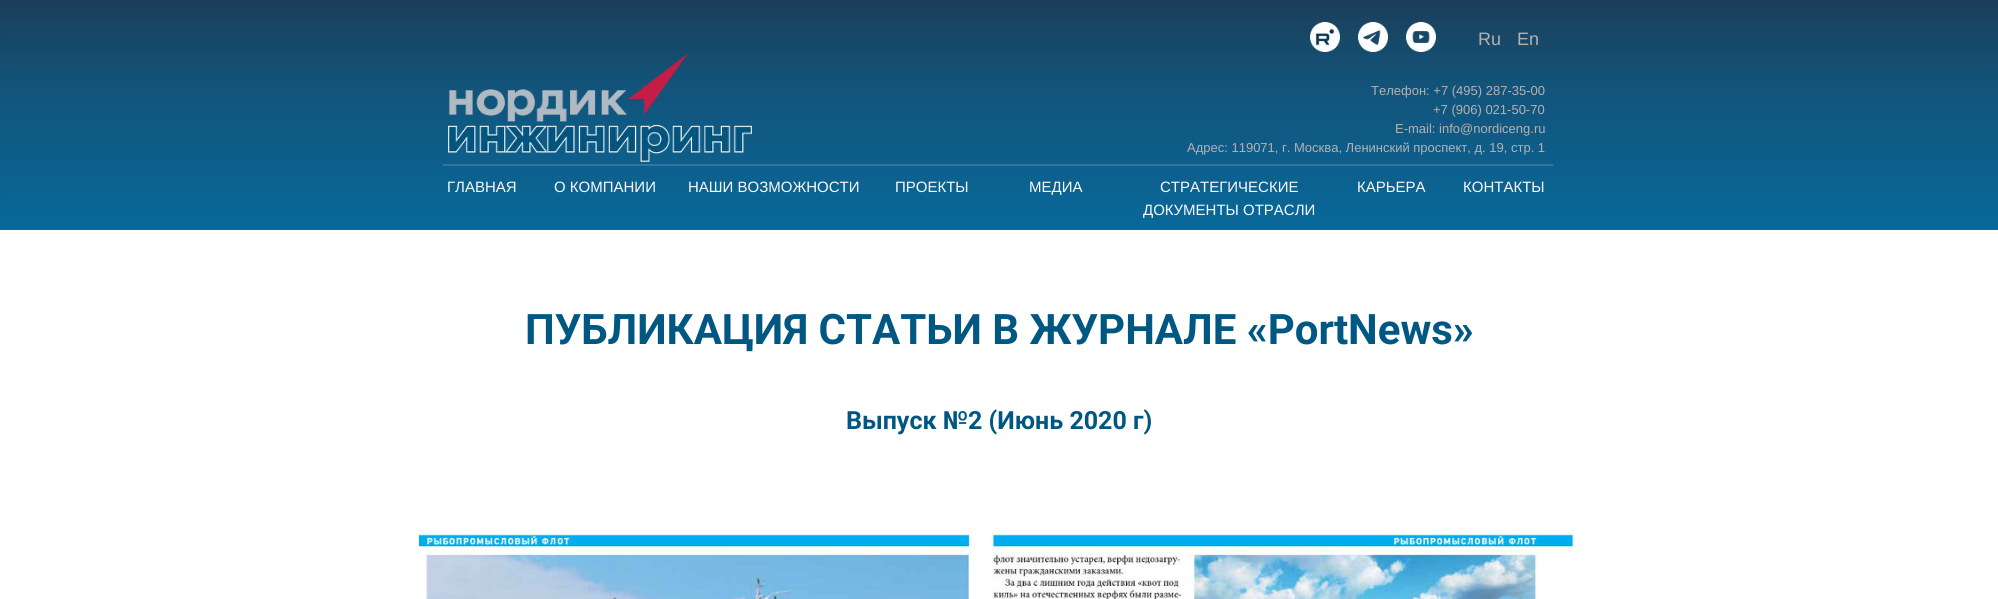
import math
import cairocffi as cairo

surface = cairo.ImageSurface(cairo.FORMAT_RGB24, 1998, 599)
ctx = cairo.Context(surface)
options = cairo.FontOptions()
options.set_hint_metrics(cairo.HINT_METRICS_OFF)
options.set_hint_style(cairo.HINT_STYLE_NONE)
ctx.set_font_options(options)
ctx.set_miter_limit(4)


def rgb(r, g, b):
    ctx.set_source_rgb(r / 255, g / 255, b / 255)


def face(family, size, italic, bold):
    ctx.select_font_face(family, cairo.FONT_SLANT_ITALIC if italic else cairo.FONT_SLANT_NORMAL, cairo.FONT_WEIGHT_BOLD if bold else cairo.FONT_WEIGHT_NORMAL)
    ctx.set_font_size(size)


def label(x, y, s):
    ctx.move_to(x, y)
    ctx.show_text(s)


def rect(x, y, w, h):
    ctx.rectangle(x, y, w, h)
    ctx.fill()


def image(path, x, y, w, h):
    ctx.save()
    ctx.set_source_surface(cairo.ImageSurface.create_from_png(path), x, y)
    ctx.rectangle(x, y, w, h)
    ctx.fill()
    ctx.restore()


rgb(255, 255, 255)
ctx.paint()
image('image0.png', 0, 0, 1998, 230)
image('image1.png', 1310, 22, 30, 30)
image('image2.png', 1358, 22, 30, 30)
image('image3.png', 1406, 22, 30, 30)
face('Liberation Sans', 18, 0, 0)
rgb(181, 177, 177)
label(1478, 45, 'Ru')
label(1517, 45, 'En')
image('image4.png', 448, 53, 304, 109)
face('Liberation Sans', 13, 0, 0)
label(1371, 95, 'Телефон: +7 (495) 287-35-00')
label(1433, 114, '+7 (906) 021-50-70')
label(1395, 133, 'E-mail: info@nordiceng.ru')
label(1187, 152, 'Адрес: 119071, г. Москва, Ленинский проспект, д. 19, стр. 1')
rgb(49, 119, 157)
rect(443, 164, 1110, 2)
face('Liberation Sans', 15, 0, 0)
rgb(249, 250, 252)
label(447, 192, 'ГЛАВНАЯ')
label(554, 192, 'О КОМПАНИИ')
label(688, 192, 'НАШИ ВОЗМОЖНОСТИ')
label(895, 192, 'ПРОЕКТЫ')
label(1029, 192, 'МЕДИА')
label(1160, 192, 'СТРАТЕГИЧЕСКИЕ')
label(1143, 215, 'ДОКУМЕНТЫ ОТРАСЛИ')
label(1357, 192, 'КАРЬЕРА')
label(1463, 192, 'КОНТАКТЫ')
face('Roboto', 42, 0, 1)
rgb(0, 87, 129)
label(525, 344, 'ПУБЛИКАЦИЯ СТАТЬИ В ЖУРНАЛЕ «PortNews»')
face('Roboto', 25, 0, 1)
label(846, 429, 'Выпуск №2 (Июнь 2020 г)')
image('image5.png', 419, 530, 1156, 69)
surface.write_to_png('render.png')
